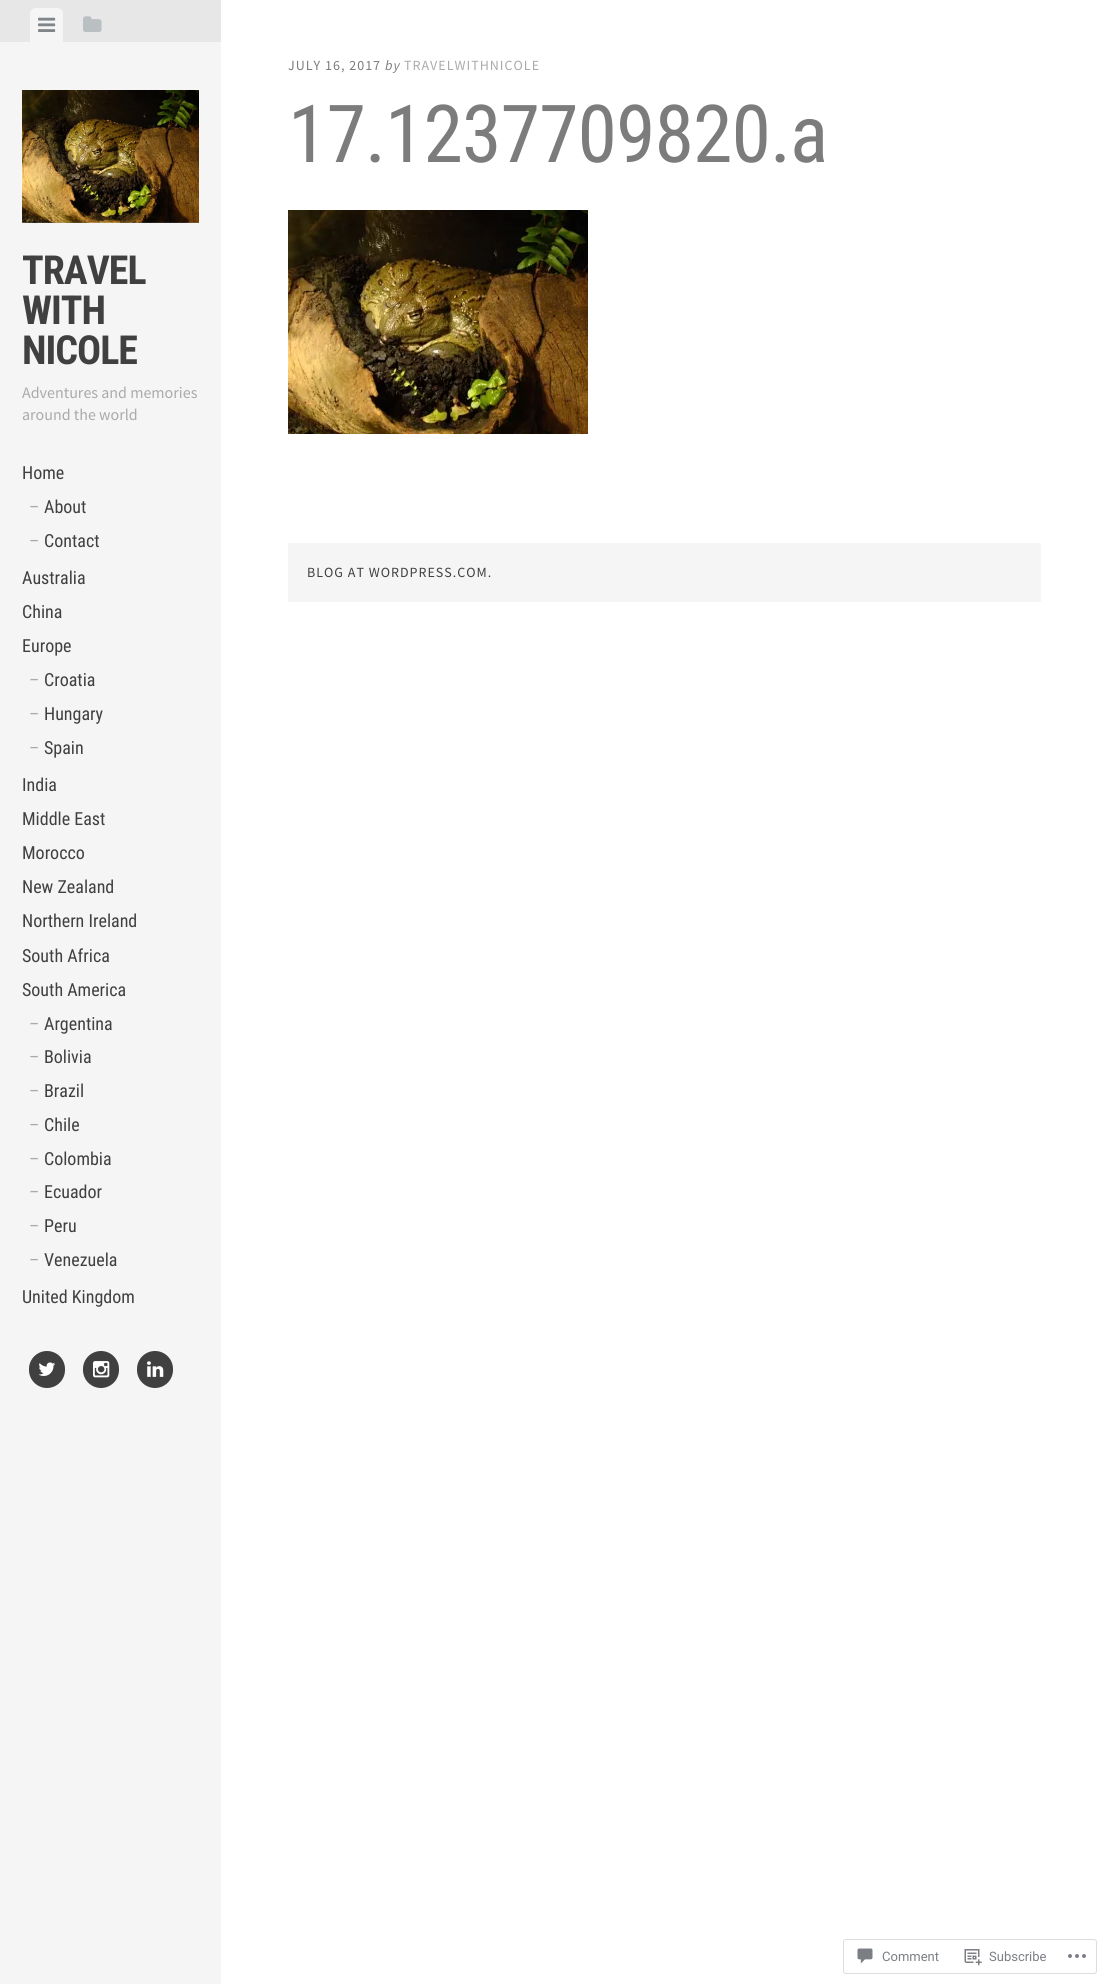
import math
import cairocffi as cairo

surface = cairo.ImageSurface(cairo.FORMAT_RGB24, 1107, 1984)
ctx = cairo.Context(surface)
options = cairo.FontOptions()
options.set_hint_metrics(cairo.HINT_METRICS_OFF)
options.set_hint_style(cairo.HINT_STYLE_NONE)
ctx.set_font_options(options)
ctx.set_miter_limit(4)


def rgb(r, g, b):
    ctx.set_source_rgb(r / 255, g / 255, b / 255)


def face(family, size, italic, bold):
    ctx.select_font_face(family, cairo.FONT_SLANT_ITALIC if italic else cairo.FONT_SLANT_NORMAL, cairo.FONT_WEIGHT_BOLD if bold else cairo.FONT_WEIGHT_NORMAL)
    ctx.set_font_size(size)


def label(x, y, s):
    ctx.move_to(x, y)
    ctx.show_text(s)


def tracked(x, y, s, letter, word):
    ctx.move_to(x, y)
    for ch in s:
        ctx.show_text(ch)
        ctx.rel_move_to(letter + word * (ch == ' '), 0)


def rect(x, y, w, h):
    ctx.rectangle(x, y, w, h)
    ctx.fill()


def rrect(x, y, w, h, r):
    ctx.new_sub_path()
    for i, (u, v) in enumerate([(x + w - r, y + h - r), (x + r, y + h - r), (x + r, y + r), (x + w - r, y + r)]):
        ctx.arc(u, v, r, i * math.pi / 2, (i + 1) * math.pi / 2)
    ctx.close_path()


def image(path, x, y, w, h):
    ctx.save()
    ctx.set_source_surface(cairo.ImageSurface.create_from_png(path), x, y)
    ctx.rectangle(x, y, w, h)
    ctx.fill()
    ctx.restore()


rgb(255, 255, 255)
ctx.paint()
face('Source Sans Pro', 14, 0, 0)
rgb(124, 124, 124)
tracked(288, 70, 'JULY 16, 2017', 1, 0)
face('Source Sans Pro', 14, 1, 0)
tracked(385, 70, 'by', 1, 0)
face('Source Sans Pro', 14, 0, 0)
rgb(170, 170, 170)
tracked(404, 70, 'TRAVELWITHNICOLE', 1, 0)
face('Roboto Condensed', 80, 0, 0)
rgb(124, 124, 124)
tracked(288, 162, '17.1237709820.a', -1, 0)
image('image0.png', 288, 210, 300, 224)
rgb(245, 245, 245)
rect(0, 42, 221, 1942)
rgb(231, 231, 231)
rect(0, 0, 221, 42)
rgb(245, 245, 245)
ctx.new_path()
ctx.move_to(36, 8)
ctx.line_to(57, 8)
ctx.curve_to(60.5, 8, 63, 10.5, 63, 14)
ctx.line_to(63, 42)
ctx.line_to(30, 42)
ctx.line_to(30, 14)
ctx.curve_to(30, 10.5, 32.5, 8, 36, 8)
ctx.close_path()
ctx.fill()
image('image1.png', 38, 17, 18, 15)
image('image2.png', 83, 16, 19, 16)
image('image3.png', 22, 90, 177, 133)
face('Roboto Condensed', 40, 0, 1)
rgb(64, 64, 64)
tracked(22, 284, 'TRAVEL', -1, 0)
tracked(22, 324, 'WITH', -1, 0)
tracked(22, 364, 'NICOLE', -1, 0)
face('Source Sans Pro', 16, 0, 0)
rgb(170, 170, 170)
label(22, 398, 'Adventures and memories')
label(22, 420, 'around the world')
face('Roboto Condensed', 18, 0, 0)
rgb(64, 64, 64)
label(22, 479, 'Home')
rgb(170, 170, 170)
label(29, 513, '–')
rgb(64, 64, 64)
label(44, 513, 'About')
rgb(170, 170, 170)
label(29, 547, '–')
rgb(64, 64, 64)
label(44, 547, 'Contact')
label(22, 584, 'Australia')
label(22, 618, 'China')
label(22, 652, 'Europe')
rgb(170, 170, 170)
label(29, 686, '–')
rgb(64, 64, 64)
label(44, 686, 'Croatia')
rgb(170, 170, 170)
label(29, 720, '–')
rgb(64, 64, 64)
label(44, 720, 'Hungary')
rgb(170, 170, 170)
label(29, 754, '–')
rgb(64, 64, 64)
label(44, 754, 'Spain')
label(22, 791, 'India')
label(22, 825, 'Middle East')
label(22, 859, 'Morocco')
label(22, 893, 'New Zealand')
label(22, 927, 'Northern Ireland')
label(22, 962, 'South Africa')
label(22, 996, 'South America')
rgb(170, 170, 170)
label(29, 1030, '–')
rgb(64, 64, 64)
label(44, 1030, 'Argentina')
rgb(170, 170, 170)
label(29, 1063, '–')
rgb(64, 64, 64)
label(44, 1063, 'Bolivia')
rgb(170, 170, 170)
label(29, 1097, '–')
rgb(64, 64, 64)
label(44, 1097, 'Brazil')
rgb(170, 170, 170)
label(29, 1131, '–')
rgb(64, 64, 64)
label(44, 1131, 'Chile')
rgb(170, 170, 170)
label(29, 1165, '–')
rgb(64, 64, 64)
label(44, 1165, 'Colombia')
rgb(170, 170, 170)
label(29, 1198, '–')
rgb(64, 64, 64)
label(44, 1198, 'Ecuador')
rgb(170, 170, 170)
label(29, 1232, '–')
rgb(64, 64, 64)
label(44, 1232, 'Peru')
rgb(170, 170, 170)
label(29, 1266, '–')
rgb(64, 64, 64)
label(44, 1266, 'Venezuela')
label(22, 1303, 'United Kingdom')
rrect(29, 1351, 36, 37, 18)
ctx.fill()
image('image4.png', 38, 1362, 17, 14)
rrect(83, 1351, 36, 37, 18)
ctx.fill()
image('image5.png', 93, 1361, 17, 17)
rrect(137, 1351, 36, 37, 18)
ctx.fill()
image('image6.png', 147, 1361, 17, 16)
rgb(245, 245, 245)
rect(288, 543, 753, 59)
face('Source Sans Pro', 14, 0, 0)
rgb(64, 64, 64)
tracked(307, 577, 'BLOG AT WORDPRESS.COM.', 1, 0)
rrect(843.5, 1939.5, 253, 34, 2.5)
rgb(221, 221, 223)
ctx.set_line_width(1)
ctx.stroke()
image('image7.png', 857, 1948, 16, 16)
face('Roboto', 13, 0, 0)
rgb(123, 127, 133)
label(882, 1961, 'Comment')
image('image8.png', 964, 1949, 18, 17)
label(989, 1961, 'Subscribe')
image('image9.png', 1068, 1954, 18, 4)
surface.write_to_png('render.png')
